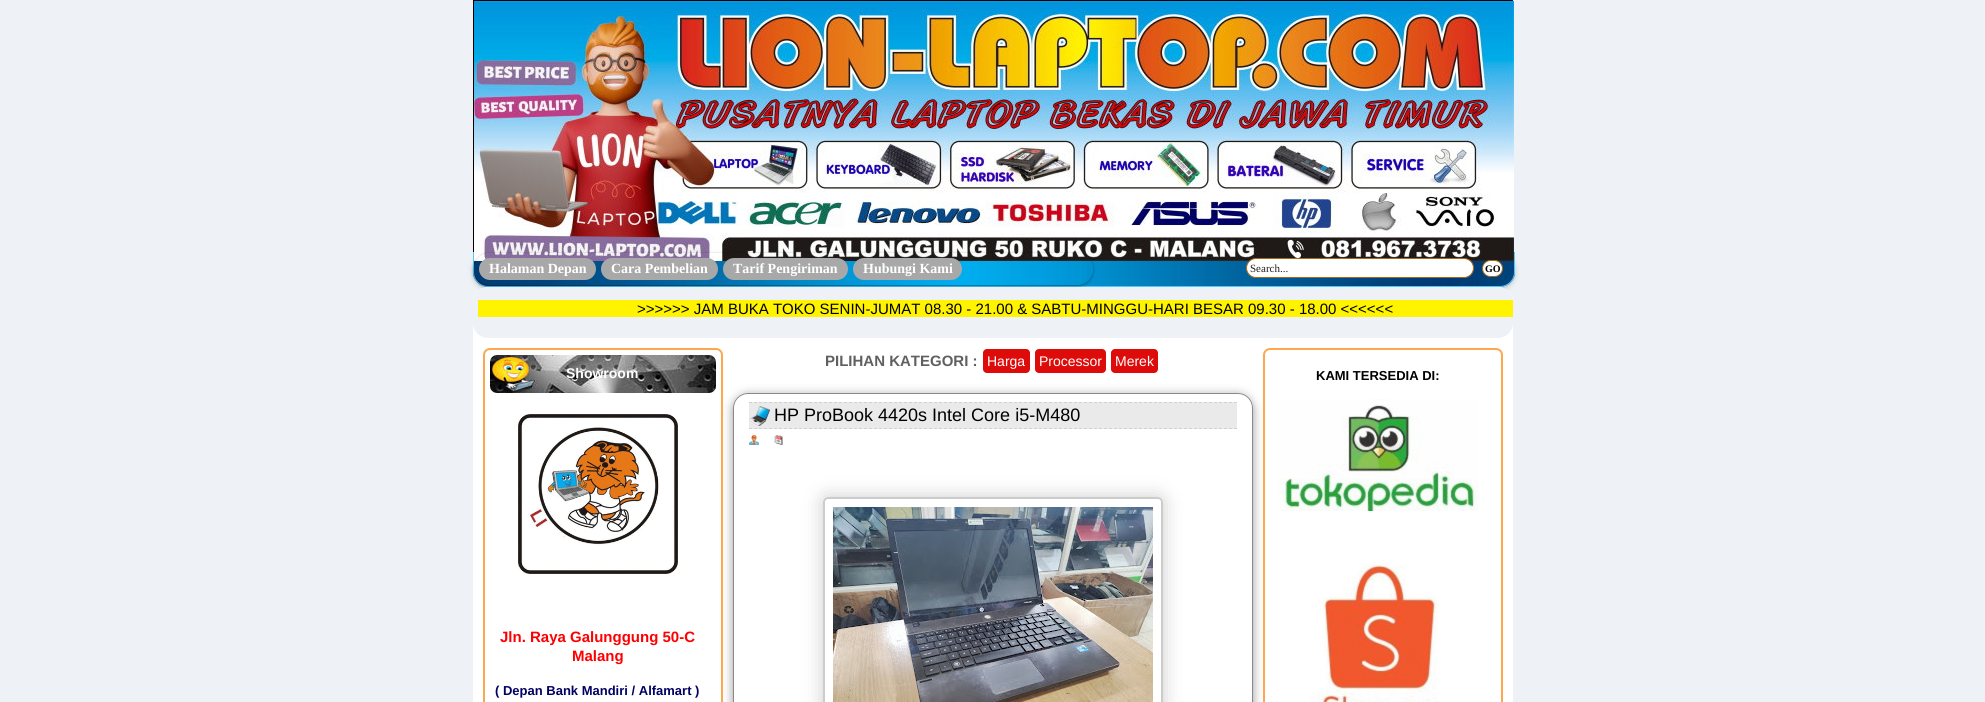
import math
import cairocffi as cairo

surface = cairo.ImageSurface(cairo.FORMAT_RGB24, 1985, 702)
ctx = cairo.Context(surface)
options = cairo.FontOptions()
options.set_hint_metrics(cairo.HINT_METRICS_OFF)
options.set_hint_style(cairo.HINT_STYLE_NONE)
ctx.set_font_options(options)
ctx.set_miter_limit(4)


def rgb(r, g, b):
    ctx.set_source_rgb(r / 255, g / 255, b / 255)


def face(family, size, italic, bold):
    ctx.select_font_face(family, cairo.FONT_SLANT_ITALIC if italic else cairo.FONT_SLANT_NORMAL, cairo.FONT_WEIGHT_BOLD if bold else cairo.FONT_WEIGHT_NORMAL)
    ctx.set_font_size(size)


def label(x, y, s):
    ctx.move_to(x, y)
    ctx.show_text(s)


def rect(x, y, w, h):
    ctx.rectangle(x, y, w, h)
    ctx.fill()


def rrect(x, y, w, h, r):
    ctx.new_sub_path()
    for i, (u, v) in enumerate([(x + w - r, y + h - r), (x + r, y + h - r), (x + r, y + r), (x + w - r, y + r)]):
        ctx.arc(u, v, r, i * math.pi / 2, (i + 1) * math.pi / 2)
    ctx.close_path()


def soft_shadow(x, y, w, h, r, blur, alpha):
    ctx.push_group_with_content(cairo.CONTENT_ALPHA)
    ctx.set_operator(cairo.OPERATOR_SOURCE)
    for i in range(15, -16, -2):
        e = blur * i / 6
        if min(w, h) + 2 * e > 0:
            ctx.set_source_rgba(0, 0, 0, alpha * math.erfc((i - 1) / 8.5) / 2)
            rrect(x - e, y - e, w + 2 * e, h + 2 * e, max(0, min(r + e + blur * .6, min(w, h) / 2 + e)))
            ctx.fill()
    ctx.mask(ctx.pop_group())


def image(path, x, y, w, h):
    ctx.save()
    ctx.set_source_surface(cairo.ImageSurface.create_from_png(path), x, y)
    ctx.rectangle(x, y, w, h)
    ctx.fill()
    ctx.restore()


rgb(238, 242, 247)
ctx.paint()
rgb(0, 0, 0)
rect(473, 0, 1040, 252)
rgb(192, 192, 192)
soft_shadow(473, 254, 1042, 35, 15, 2.5, 1)
image('image1.png', 473, 261, 1042, 26)
ctx.new_path()
ctx.move_to(473.5, 252.5)
ctx.line_to(1514.5, 252.5)
ctx.line_to(1514.5, 272)
ctx.curve_to(1514.5, 280, 1508, 286.5, 1500, 286.5)
ctx.line_to(488, 286.5)
ctx.curve_to(480, 286.5, 473.5, 280, 473.5, 272)
ctx.close_path()
rgb(84, 198, 252)
ctx.set_line_width(1)
ctx.stroke()
image('image0.png', 474, 1, 1040, 260)
rgb(255, 255, 255)
rrect(473, 287, 1040, 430, 15)
ctx.fill()
ctx.save()
ctx.set_fill_rule(cairo.FILL_RULE_EVEN_ODD)
ctx.new_path()
ctx.move_to(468, 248)
ctx.line_to(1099, 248)
ctx.line_to(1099, 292)
ctx.line_to(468, 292)
ctx.close_path()
ctx.move_to(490, 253)
ctx.line_to(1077, 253)
ctx.curve_to(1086, 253, 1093, 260, 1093, 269)
ctx.curve_to(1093, 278, 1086, 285, 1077, 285)
ctx.line_to(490, 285)
ctx.curve_to(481, 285, 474, 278, 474, 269)
ctx.curve_to(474, 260, 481, 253, 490, 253)
ctx.close_path()
ctx.clip()
rgb(0, 0, 0)
soft_shadow(474, 254, 619, 32, 16, 1.5, 0.4)
ctx.restore()
rgb(168, 168, 168)
rrect(479, 258, 117, 22, 11)
ctx.fill()
face('Liberation Serif', 14, 0, 1)
rgb(255, 255, 255)
label(489, 273, 'Halaman Depan')
rgb(168, 168, 168)
rrect(601, 258, 117, 22, 11)
ctx.fill()
rgb(255, 255, 255)
label(611, 273, 'Cara Pembelian')
rgb(168, 168, 168)
rrect(723, 258, 125, 22, 11)
ctx.fill()
rgb(255, 255, 255)
label(733, 273, 'Tarif Pengiriman')
rgb(168, 168, 168)
rrect(853, 258, 109, 22, 11)
ctx.fill()
rgb(255, 255, 255)
label(863, 273, 'Hubungi Kami')
rrect(1246.5, 258.5, 227, 19, 9.5)
ctx.fill_preserve()
rgb(168, 105, 22)
ctx.stroke()
face('Liberation Serif', 11, 0, 0)
rgb(32, 32, 32)
label(1250, 272, 'Search...')
rgb(255, 255, 255)
rrect(1482.5, 260.5, 20, 16, 8)
ctx.fill_preserve()
rgb(168, 105, 22)
ctx.stroke()
face('Liberation Serif', 10, 0, 1)
rgb(0, 0, 0)
label(1485, 272, 'GO')
rgb(238, 242, 247)
rrect(473, 287, 1040, 51, 15)
ctx.fill()
rgb(255, 243, 0)
rect(478, 300, 1035, 17)
face('Liberation Sans', 15, 0, 0)
rgb(0, 0, 0)
label(637, 314, '>>>>>> JAM BUKA TOKO SENIN-JUMAT 08.30 - 21.00 & SABTU-MINGGU-HARI BESAR 09.30 - 18.00 <<<<<<')
rrect(484, 349, 238, 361, 6)
rgb(255, 167, 79)
ctx.set_line_width(2)
ctx.stroke()
image('image2.png', 490, 355, 226, 38)
face('Liberation Sans', 14, 0, 1)
rgb(255, 255, 255)
label(566, 378, 'Showroom')
image('image3.png', 518, 414, 160, 160)
face('Liberation Sans', 15, 0, 1)
rgb(255, 0, 0)
label(500, 642, 'Jln. Raya Galunggung 50-C')
label(572, 661, 'Malang')
face('Liberation Sans', 13, 0, 1)
rgb(1, 1, 100)
label(495, 695, '( Depan Bank Mandiri / Alfamart )')
face('Liberation Sans', 15, 0, 1)
rgb(96, 96, 96)
label(825, 366, 'PILIHAN KATEGORI :')
rgb(222, 11, 11)
rrect(983, 349, 47, 24, 4)
ctx.fill()
face('Liberation Sans', 14, 0, 0)
rgb(255, 255, 255)
label(987, 366, 'Harga')
rgb(222, 11, 11)
rrect(1035, 349, 71, 24, 4)
ctx.fill()
rgb(255, 255, 255)
label(1039, 366, 'Processor')
rgb(222, 11, 11)
rrect(1111, 349, 47, 24, 4)
ctx.fill()
rgb(255, 255, 255)
label(1115, 366, 'Merek')
ctx.save()
ctx.set_fill_rule(cairo.FILL_RULE_EVEN_ODD)
ctx.new_path()
ctx.move_to(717, 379)
ctx.line_to(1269, 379)
ctx.line_to(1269, 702)
ctx.line_to(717, 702)
ctx.close_path()
ctx.move_to(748, 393)
ctx.line_to(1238, 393)
ctx.curve_to(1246.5, 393, 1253, 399.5, 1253, 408)
ctx.line_to(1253, 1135)
ctx.curve_to(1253, 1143.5, 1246.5, 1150, 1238, 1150)
ctx.line_to(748, 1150)
ctx.curve_to(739.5, 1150, 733, 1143.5, 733, 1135)
ctx.line_to(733, 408)
ctx.curve_to(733, 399.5, 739.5, 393, 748, 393)
ctx.close_path()
ctx.clip()
rgb(153, 153, 153)
soft_shadow(733, 395, 520, 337, 15, 5, 1)
ctx.restore()
rrect(733.5, 393.5, 519, 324, 14.5)
rgb(138, 137, 137)
ctx.set_line_width(1)
ctx.stroke()
rgb(234, 234, 234)
rect(749, 402, 488, 27)
image('image4.png', 749, 406, 21, 20)
ctx.new_path()
ctx.move_to(749, 402.5)
ctx.line_to(1237, 402.5)
rgb(208, 208, 208)
ctx.set_dash([3, 2])
ctx.stroke()
ctx.new_path()
ctx.move_to(749, 428.5)
ctx.line_to(1237, 428.5)
ctx.stroke()
face('Liberation Sans', 18, 0, 0)
rgb(0, 0, 0)
label(774, 421, 'HP ProBook 4420s Intel Core i5-M480')
image('image5.png', 749, 435, 10, 10)
image('image6.png', 774, 435, 9, 10)
ctx.save()
ctx.set_fill_rule(cairo.FILL_RULE_EVEN_ODD)
ctx.new_path()
ctx.move_to(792, 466)
ctx.line_to(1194, 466)
ctx.line_to(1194, 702)
ctx.line_to(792, 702)
ctx.close_path()
ctx.move_to(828, 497)
ctx.line_to(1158, 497)
ctx.curve_to(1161, 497, 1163, 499, 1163, 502)
ctx.line_to(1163, 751)
ctx.curve_to(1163, 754, 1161, 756, 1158, 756)
ctx.line_to(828, 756)
ctx.curve_to(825, 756, 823, 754, 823, 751)
ctx.line_to(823, 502)
ctx.curve_to(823, 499, 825, 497, 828, 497)
ctx.close_path()
ctx.clip()
rgb(0, 0, 0)
soft_shadow(823, 497, 340, 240, 5, 10, 0.2)
ctx.restore()
rrect(824, 498, 338, 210, 4)
rgb(204, 204, 204)
ctx.set_line_width(2)
ctx.set_dash([])
ctx.stroke()
image('image7.png', 833, 507, 320, 195)
rrect(1264, 349, 238, 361, 6)
rgb(255, 167, 79)
ctx.stroke()
face('Liberation Sans', 13, 0, 1)
rgb(0, 0, 0)
label(1316, 380, 'KAMI TERSEDIA DI:')
image('image8.png', 1278, 399, 200, 112)
image('image9.png', 1309, 560, 130, 142)
surface.write_to_png('render.png')
